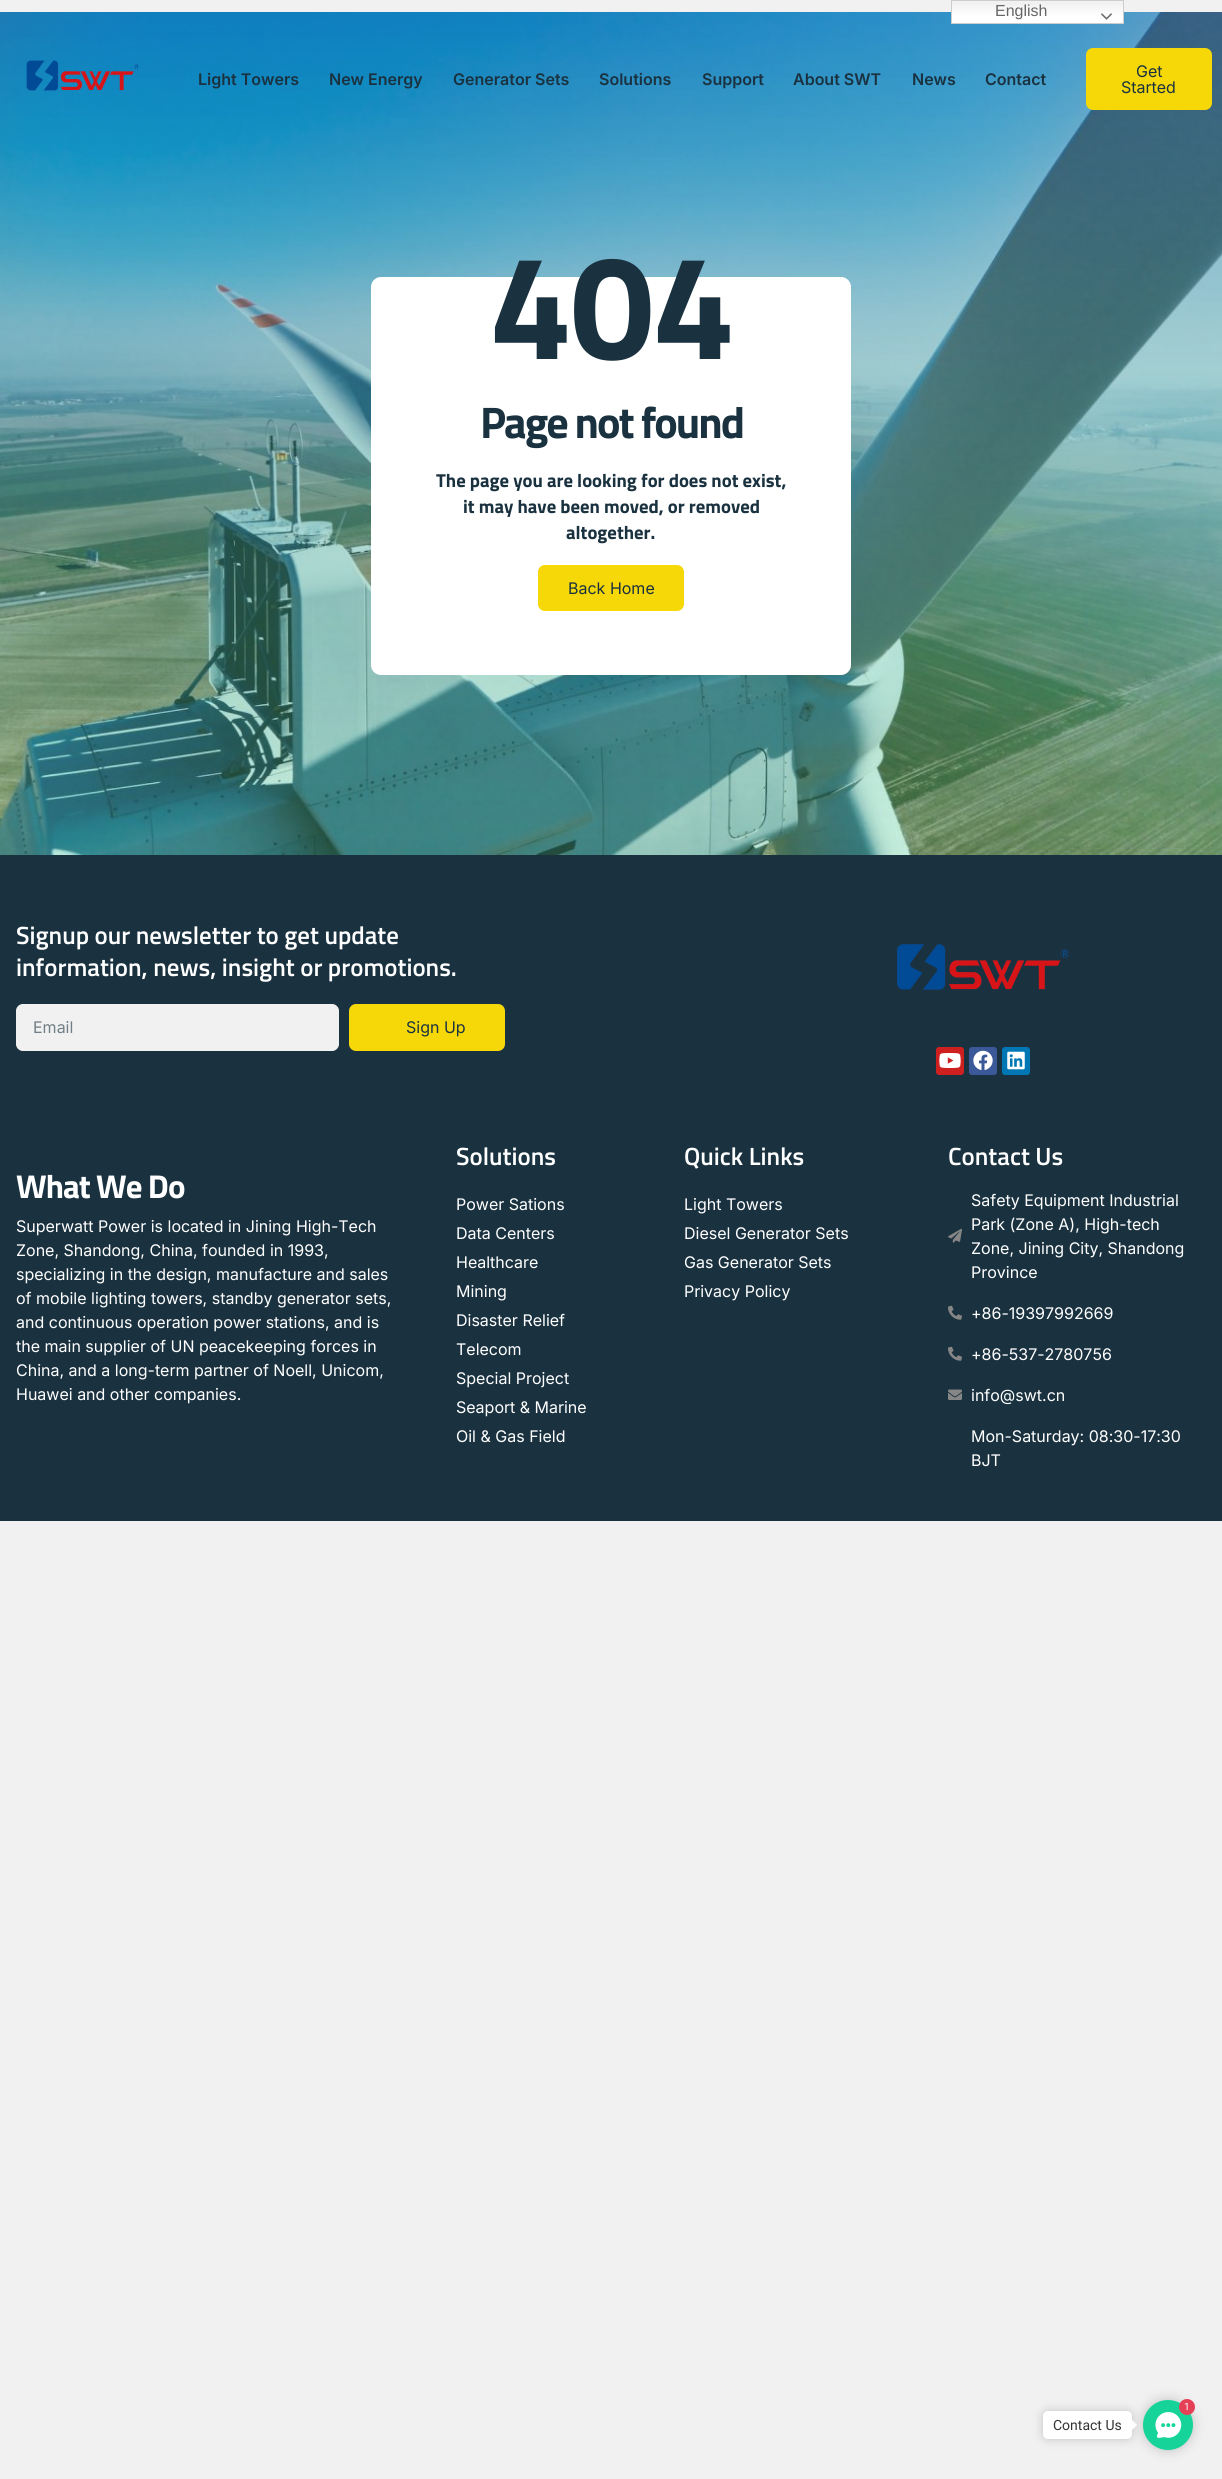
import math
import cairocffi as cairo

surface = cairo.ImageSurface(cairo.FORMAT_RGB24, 1222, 2479)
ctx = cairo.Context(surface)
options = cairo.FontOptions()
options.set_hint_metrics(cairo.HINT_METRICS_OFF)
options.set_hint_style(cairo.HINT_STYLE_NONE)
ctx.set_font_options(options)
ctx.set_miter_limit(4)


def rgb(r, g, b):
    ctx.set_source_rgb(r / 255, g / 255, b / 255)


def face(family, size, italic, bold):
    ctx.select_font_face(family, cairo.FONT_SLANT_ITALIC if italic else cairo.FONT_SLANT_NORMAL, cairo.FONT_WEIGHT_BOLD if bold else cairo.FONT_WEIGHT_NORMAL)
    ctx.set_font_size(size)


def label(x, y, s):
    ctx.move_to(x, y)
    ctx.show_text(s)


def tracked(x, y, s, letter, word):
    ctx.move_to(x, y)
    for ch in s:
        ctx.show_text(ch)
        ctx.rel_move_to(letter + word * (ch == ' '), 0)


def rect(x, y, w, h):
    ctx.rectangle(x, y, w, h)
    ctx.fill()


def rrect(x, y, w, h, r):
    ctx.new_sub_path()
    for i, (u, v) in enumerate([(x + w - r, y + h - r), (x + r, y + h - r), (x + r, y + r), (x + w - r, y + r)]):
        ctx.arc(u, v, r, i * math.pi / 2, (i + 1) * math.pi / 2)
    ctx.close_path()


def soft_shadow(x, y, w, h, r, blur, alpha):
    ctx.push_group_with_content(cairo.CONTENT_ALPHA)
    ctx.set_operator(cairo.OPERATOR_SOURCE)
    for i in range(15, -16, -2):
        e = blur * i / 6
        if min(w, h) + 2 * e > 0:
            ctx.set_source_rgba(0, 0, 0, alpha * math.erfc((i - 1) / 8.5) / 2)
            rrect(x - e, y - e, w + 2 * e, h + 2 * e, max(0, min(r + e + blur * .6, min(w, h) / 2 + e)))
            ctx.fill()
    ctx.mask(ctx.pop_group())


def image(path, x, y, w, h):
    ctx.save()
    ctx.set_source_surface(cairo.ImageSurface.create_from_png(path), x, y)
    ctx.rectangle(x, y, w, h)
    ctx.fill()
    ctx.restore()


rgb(241, 241, 241)
ctx.paint()
image('image2.png', 0, 12, 1222, 843)
gradient = cairo.LinearGradient(1038, 0, 1038, 24)
gradient.add_color_stop_rgba(0, 0.937, 0.937, 0.937, 1)
gradient.add_color_stop_rgba(0.7, 1, 1, 1, 1)
ctx.set_source(gradient)
rect(952, 5, 171, 18)
ctx.rectangle(951.5, 0.5, 172, 23)
rgb(204, 204, 204)
ctx.set_line_width(1)
ctx.stroke()
face('Liberation Sans', 16, 0, 0)
rgb(102, 102, 102)
label(995, 16, 'English')
image('image0.png', 1101, 13, 11, 7)
image('image1.png', 26, 60, 114, 31)
face('Inter SemiBold', 16, 0, 0)
rgb(26, 50, 64)
label(198, 85, 'Light Towers')
label(329, 85, 'New Energy')
label(453, 85, 'Generator Sets')
label(599, 85, 'Solutions')
label(702, 85, 'Support')
label(793, 85, 'About SWT')
label(912, 85, 'News')
label(985, 85, 'Contact')
rgb(246, 215, 7)
rrect(1086, 48, 126, 62, 7)
ctx.fill()
face('Inter', 16, 0, 0)
rgb(26, 50, 64)
label(1136, 77, 'Get')
label(1121, 93, 'Started')
rgb(255, 255, 255)
rrect(371, 277, 480, 398, 10)
ctx.fill()
face('Titillium Web', 149, 0, 1)
rgb(26, 50, 64)
tracked(489, 359, '404', -2, 0)
face('Titillium Web', 44.25, 0, 1)
tracked(480, 438, 'Page not found', -2, 0)
face('Titillium Web', 18.7, 0, 1)
label(436, 487, 'The page you are looking for does not exist,')
label(463, 513, 'it may have been moved, or removed')
label(566, 539, 'altogether.')
rgb(246, 215, 7)
rrect(538, 565, 146, 46, 7)
ctx.fill()
face('Inter', 16, 0, 0)
rgb(26, 50, 64)
label(568, 594, 'Back Home')
rect(0, 855, 1222, 666)
face('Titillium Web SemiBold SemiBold', 24.9, 0, 0)
rgb(255, 255, 255)
label(16, 944, 'Signup our newsletter to get update')
label(16, 976, 'information, news, insight or promotions.')
rgb(241, 241, 241)
rrect(16.5, 1004.5, 322, 46, 6.5)
ctx.fill_preserve()
ctx.stroke()
face('Inter', 16, 0, 0)
rgb(112, 126, 135)
label(33, 1033, 'Email')
rgb(246, 215, 7)
rrect(349, 1004, 156, 47, 7)
ctx.fill()
rgb(26, 50, 64)
label(406, 1033, 'Sign Up')
image('image3.png', 897, 944, 173, 46)
rgb(205, 32, 31)
rrect(936, 1047, 28, 28, 3)
ctx.fill()
image('image4.png', 939, 1053, 22, 15)
rgb(59, 89, 152)
rrect(969, 1047, 28, 28, 3)
ctx.fill()
image('image5.png', 973, 1050, 20, 20)
rgb(0, 119, 181)
rrect(1002, 1047, 28, 28, 3)
ctx.fill()
image('image6.png', 1007, 1051, 18, 19)
face('Titillium Web', 33, 0, 1)
rgb(255, 255, 255)
tracked(16, 1198, 'What We Do', -1, 0)
face('Inter', 16, 0, 0)
label(16, 1232, 'Superwatt Power is located in Jining High-Tech')
label(16, 1256, 'Zone, Shandong, China, founded in 1993,')
label(16, 1280, 'specializing in the design, manufacture and sales')
label(16, 1304, 'of mobile lighting towers, standby generator sets,')
label(16, 1328, 'and continuous operation power stations, and is')
label(16, 1352, 'the main supplier of UN peacekeeping forces in')
label(16, 1376, 'China, and a long-term partner of Noell, Unicom,')
label(16, 1400, 'Huawei and other companies.')
face('Titillium Web SemiBold SemiBold', 24.9, 0, 0)
label(456, 1165, 'Solutions')
face('Inter', 16, 0, 0)
label(456, 1210, 'Power Sations')
label(456, 1239, 'Data Centers')
label(456, 1268, 'Healthcare')
label(456, 1297, 'Mining')
label(456, 1326, 'Disaster Relief')
label(456, 1355, 'Telecom')
label(456, 1384, 'Special Project')
label(456, 1413, 'Seaport & Marine')
label(456, 1442, 'Oil & Gas Field')
face('Titillium Web SemiBold SemiBold', 24.9, 0, 0)
label(684, 1165, 'Quick Links')
face('Inter', 16, 0, 0)
label(684, 1210, 'Light Towers')
label(684, 1239, 'Diesel Generator Sets')
label(684, 1268, 'Gas Generator Sets')
label(684, 1297, 'Privacy Policy')
face('Titillium Web SemiBold SemiBold', 24.9, 0, 0)
label(948, 1165, 'Contact Us')
image('image7.png', 948, 1228, 14, 15)
face('Inter', 16, 0, 0)
label(971, 1206, 'Safety Equipment Industrial')
label(971, 1230, 'Park (Zone A), High-tech')
label(971, 1254, 'Zone, Jining City, Shandong')
label(971, 1278, 'Province')
image('image8.png', 948, 1305, 14, 15)
label(971, 1319, '+86-19397992669')
image('image8.png', 948, 1346, 14, 15)
label(971, 1360, '+86-537-2780756')
image('image9.png', 948, 1389, 14, 11)
label(971, 1401, 'info@swt.cn')
label(971, 1442, 'Mon-Saturday: 08:30-17:30')
label(971, 1466, 'BJT')
rgb(0, 0, 0)
soft_shadow(1143, 2400, 50, 50, 25, 6, 0.2)
rgb(22, 211, 154)
ctx.arc(1168, 2425, 25, 0, 2 * math.pi)
ctx.fill()
image('image10.png', 1155, 2412, 27, 26)
rgb(230, 64, 86)
ctx.arc(1187, 2407, 8, 0, 2 * math.pi)
ctx.fill()
face('Roboto', 10, 0, 0)
rgb(255, 255, 255)
label(1184, 2410, '1')
rgb(0, 0, 0)
soft_shadow(1043, 2411, 89, 28, 5, 5, 0.2)
rgb(255, 255, 255)
rrect(1043, 2411, 89, 28, 5)
ctx.fill()
face('Roboto', 14, 0, 0)
rgb(51, 51, 51)
label(1053, 2430, 'Contact Us')
rgb(255, 255, 255)
ctx.new_path()
ctx.move_to(1132, 2430)
ctx.line_to(1132, 2420)
ctx.line_to(1137, 2425)
ctx.close_path()
ctx.fill()
surface.write_to_png('render.png')
